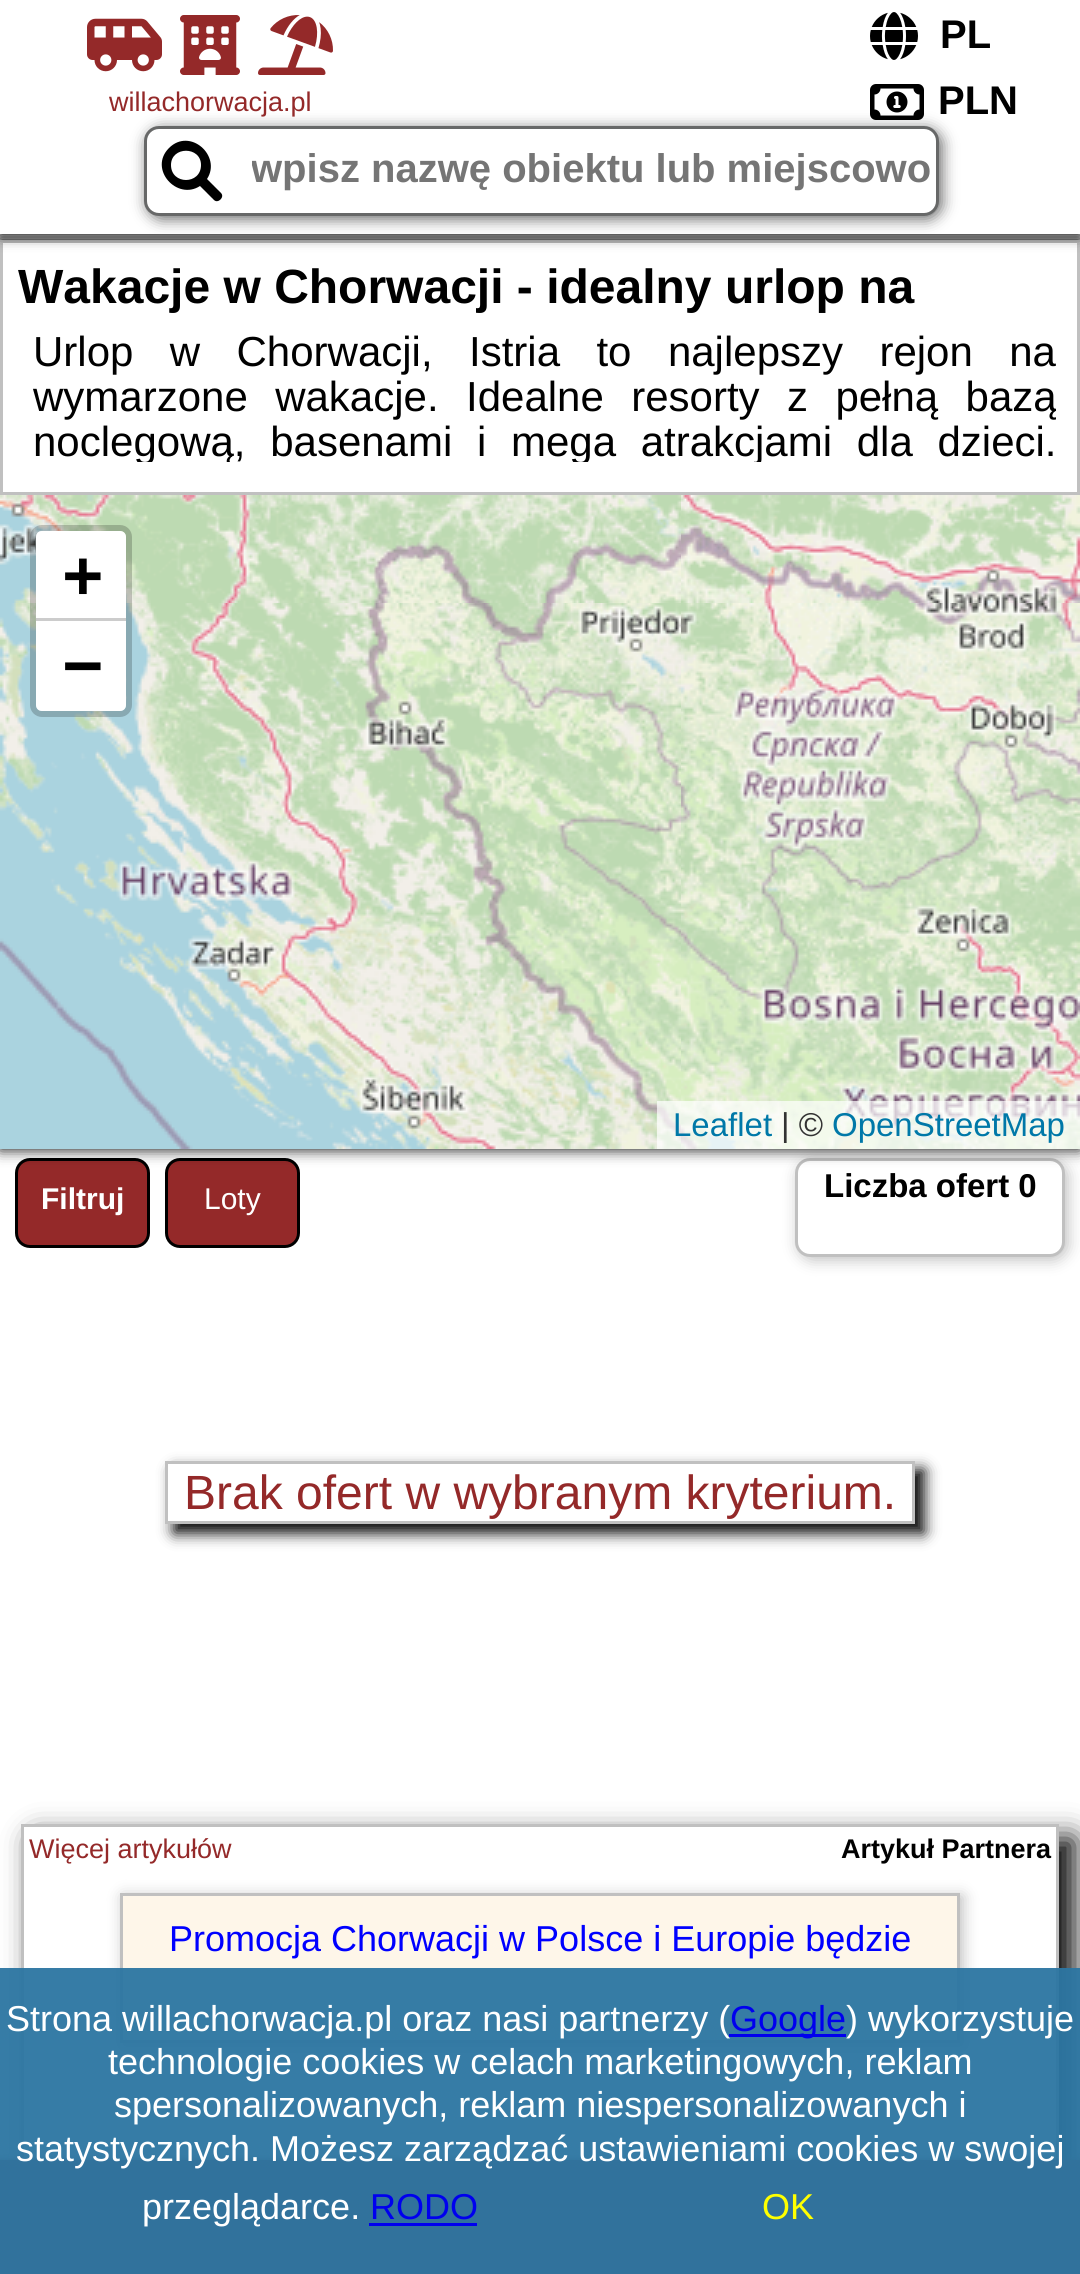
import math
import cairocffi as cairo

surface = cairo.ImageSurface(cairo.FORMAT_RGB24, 1080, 2274)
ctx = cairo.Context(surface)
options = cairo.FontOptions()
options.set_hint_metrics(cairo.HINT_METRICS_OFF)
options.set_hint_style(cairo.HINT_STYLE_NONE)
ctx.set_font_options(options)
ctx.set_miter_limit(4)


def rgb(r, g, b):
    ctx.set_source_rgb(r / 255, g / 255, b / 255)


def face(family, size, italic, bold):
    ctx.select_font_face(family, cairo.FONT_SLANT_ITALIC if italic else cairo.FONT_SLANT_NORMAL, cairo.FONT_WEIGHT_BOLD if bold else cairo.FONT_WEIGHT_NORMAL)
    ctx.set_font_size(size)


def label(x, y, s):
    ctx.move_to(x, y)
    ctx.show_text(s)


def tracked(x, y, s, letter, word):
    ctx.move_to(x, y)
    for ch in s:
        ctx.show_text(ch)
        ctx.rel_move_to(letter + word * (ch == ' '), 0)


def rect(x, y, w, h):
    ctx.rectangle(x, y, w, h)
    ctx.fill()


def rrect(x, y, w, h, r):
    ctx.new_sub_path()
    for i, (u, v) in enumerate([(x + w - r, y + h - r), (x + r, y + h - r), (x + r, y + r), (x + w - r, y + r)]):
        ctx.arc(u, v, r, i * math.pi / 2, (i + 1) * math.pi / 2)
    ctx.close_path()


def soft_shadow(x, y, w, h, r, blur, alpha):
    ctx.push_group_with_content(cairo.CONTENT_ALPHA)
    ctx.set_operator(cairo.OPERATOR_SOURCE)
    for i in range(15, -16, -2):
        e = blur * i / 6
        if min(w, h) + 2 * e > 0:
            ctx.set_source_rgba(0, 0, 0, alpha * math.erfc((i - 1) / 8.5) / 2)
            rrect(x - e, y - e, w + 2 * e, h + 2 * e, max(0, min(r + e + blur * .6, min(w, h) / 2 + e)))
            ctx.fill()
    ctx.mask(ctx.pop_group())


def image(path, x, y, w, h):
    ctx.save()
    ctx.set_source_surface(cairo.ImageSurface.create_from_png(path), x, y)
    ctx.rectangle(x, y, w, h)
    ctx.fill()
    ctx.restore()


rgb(255, 255, 255)
ctx.paint()
rgb(148, 41, 41)
rrect(16.5, 1159.5, 132, 87, 13.5)
ctx.fill_preserve()
rgb(0, 0, 0)
ctx.set_line_width(3)
ctx.stroke()
rgb(148, 41, 41)
rrect(166.5, 1159.5, 132, 87, 13.5)
ctx.fill_preserve()
rgb(0, 0, 0)
ctx.stroke()
rgb(192, 192, 192)
soft_shadow(798, 1161, 270, 99, 15, 7.5, 1)
rgb(255, 255, 255)
rrect(796.5, 1159.5, 267, 96, 13.5)
ctx.fill_preserve()
rgb(192, 192, 192)
ctx.stroke()
ctx.save()
ctx.set_fill_rule(cairo.FILL_RULE_EVEN_ODD)
ctx.new_path()
ctx.move_to(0, 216)
ctx.line_to(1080, 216)
ctx.line_to(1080, 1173)
ctx.line_to(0, 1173)
ctx.close_path()
ctx.move_to(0, 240)
ctx.line_to(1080, 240)
ctx.line_to(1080, 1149)
ctx.line_to(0, 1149)
ctx.close_path()
ctx.clip()
rgb(0, 0, 0)
soft_shadow(0, 240, 1080, 909, 0, 7.5, 1)
ctx.restore()
ctx.rectangle(1.5, 241.5, 1077, 252)
ctx.stroke()
rgb(0, 0, 0)
soft_shadow(0, 0, 1080, 234, 0, 7.5, 1)
rgb(255, 255, 255)
rect(0, 0, 1080, 234)
image('image0.png', 870, 12, 48, 48)
face('Liberation Sans', 40, 0, 1)
rgb(0, 0, 0)
label(940, 48, 'PL')
image('image1.png', 87, 18, 75, 54)
image('image2.png', 180, 15, 60, 60)
image('image3.png', 258, 15, 75, 60)
face('Liberation Sans', 27, 0, 0)
rgb(148, 41, 41)
label(109, 111, 'willachorwacja.pl')
rgb(103, 104, 104)
soft_shadow(147, 129, 795, 90, 15, 7.5, 1)
image('image4.png', 870, 84, 54, 36)
face('Liberation Sans', 40, 0, 1)
rgb(0, 0, 0)
label(938, 114, 'PLN')
rgb(255, 255, 255)
rrect(145.5, 127.5, 792, 87, 13.5)
ctx.fill_preserve()
rgb(103, 104, 104)
ctx.stroke()
rgb(0, 0, 0)
ctx.new_path()
ctx.move_to(221, 193)
ctx.line_to(207, 179)
ctx.curve_to(222, 156, 190, 127, 169, 148)
ctx.curve_to(148, 169, 177, 201, 200, 186)
ctx.line_to(214, 200)
ctx.curve_to(218, 204, 225, 197, 221, 193)
ctx.close_path()
ctx.move_to(171, 165)
ctx.curve_to(171, 146, 201, 146, 201, 165)
ctx.curve_to(201, 185, 171, 185, 171, 165)
ctx.close_path()
ctx.fill()
ctx.save()
ctx.rectangle(252, 147, 681, 45)
ctx.clip()
rgb(117, 117, 117)
label(251, 182, 'wpisz nazwę obiektu lub miejscowo')
ctx.restore()
face('Liberation Sans', 48, 0, 1)
label(18, 303, 'Wakacje w Chorwacji - idealny urlop na')
face('Liberation Sans', 42, 0, 0)
tracked(33, 366, 'Urlop w Chorwacji, Istria to najlepszy rejon na', 0, 24.75)
ctx.save()
ctx.rectangle(33, 330, 1023, 132)
ctx.clip()
tracked(33, 411, 'wymarzone wakacje. Idealne resorty z pełną bazą', 0, 15.75)
tracked(33, 456, 'noclegową, basenami i mega atrakcjami dla dzieci.', 0, 13)
ctx.restore()
image('image5.png', 0, 495, 681, 108)
image('image6.png', 681, 495, 399, 108)
image('image7.png', 0, 603, 681, 546)
image('image8.png', 681, 603, 399, 546)
rrect(33, 528, 96, 186, 9)
ctx.set_source_rgba(0, 0, 0, 0.2)
ctx.set_line_width(6)
ctx.stroke()
rgb(255, 255, 255)
ctx.new_path()
ctx.move_to(42, 531)
ctx.line_to(120, 531)
ctx.curve_to(123.5, 531, 126, 533.5, 126, 537)
ctx.line_to(126, 621)
ctx.line_to(36, 621)
ctx.line_to(36, 537)
ctx.curve_to(36, 533.5, 38.5, 531, 42, 531)
ctx.close_path()
ctx.fill()
rgb(204, 204, 204)
rect(36, 618, 90, 3)
face('DejaVu Sans Mono', 66, 0, 1)
rgb(0, 0, 0)
label(63, 597, '+')
rgb(255, 255, 255)
ctx.new_path()
ctx.move_to(36, 621)
ctx.line_to(126, 621)
ctx.line_to(126, 705)
ctx.curve_to(126, 708.5, 123.5, 711, 120, 711)
ctx.line_to(42, 711)
ctx.curve_to(38.5, 711, 36, 708.5, 36, 705)
ctx.close_path()
ctx.fill()
rgb(0, 0, 0)
label(63, 687, '−')
ctx.set_source_rgba(1, 1, 1, 0.7)
rect(657, 1101, 423, 48)
face('Liberation Sans', 33, 0, 0)
rgb(0, 120, 168)
label(673, 1136, 'Leaflet')
rgb(51, 51, 51)
label(781, 1136, '| ©')
rgb(0, 120, 168)
label(832, 1136, 'OpenStreetMap')
face('Liberation Sans', 30, 0, 1)
rgb(255, 255, 255)
label(41, 1209, 'Filtruj')
face('Liberation Sans', 30, 0, 0)
label(204, 1209, 'Loty')
face('Liberation Sans', 33, 0, 1)
rgb(0, 0, 0)
label(824, 1197, 'Liczba ofert 0')
ctx.save()
ctx.set_fill_rule(cairo.FILL_RULE_EVEN_ODD)
ctx.new_path()
ctx.move_to(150, 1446)
ctx.line_to(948, 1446)
ctx.line_to(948, 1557)
ctx.line_to(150, 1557)
ctx.close_path()
ctx.move_to(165, 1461)
ctx.line_to(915, 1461)
ctx.line_to(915, 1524)
ctx.line_to(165, 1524)
ctx.close_path()
ctx.clip()
rgb(0, 0, 0)
soft_shadow(174, 1470, 750, 63, 0, 7.5, 1)
ctx.restore()
ctx.rectangle(166.5, 1462.5, 747, 60)
rgb(192, 192, 192)
ctx.set_line_width(3)
ctx.stroke()
face('Liberation Sans', 48, 0, 0)
rgb(148, 41, 41)
label(184, 1509, 'Brak ofert w wybranym kryterium.')
ctx.save()
ctx.set_fill_rule(cairo.FILL_RULE_EVEN_ODD)
ctx.new_path()
ctx.move_to(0, 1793)
ctx.line_to(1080, 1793)
ctx.line_to(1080, 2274)
ctx.line_to(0, 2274)
ctx.close_path()
ctx.move_to(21, 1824)
ctx.line_to(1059, 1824)
ctx.line_to(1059, 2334)
ctx.line_to(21, 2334)
ctx.close_path()
ctx.clip()
rgb(0, 0, 0)
soft_shadow(36, 1839, 1038, 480, 0, 15, 1)
ctx.restore()
ctx.rectangle(22.5, 1825.5, 1035, 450)
rgb(192, 192, 192)
ctx.stroke()
face('Liberation Sans', 27, 0, 0)
rgb(148, 41, 41)
label(29, 1858, 'Więcej artykułów')
face('Liberation Sans', 27, 0, 1)
rgb(0, 0, 0)
label(841, 1858, 'Artykuł Partnera')
rgb(192, 192, 192)
soft_shadow(123, 1896, 840, 150, 0, 7.5, 1)
rgb(254, 246, 233)
ctx.rectangle(121.5, 1894.5, 837, 147)
ctx.fill_preserve()
rgb(192, 192, 192)
ctx.stroke()
face('Liberation Sans', 36, 0, 0)
rgb(0, 0, 255)
label(169, 1951, 'Promocja Chorwacji w Polsce i Europie będzie')
rgb(148, 41, 41)
soft_shadow(0, 2160, 1080, 114, 0, 3, 1)
rgb(148, 41, 41)
rect(0, 2160, 1080, 114)
ctx.set_source_rgba(0.176, 0.463, 0.635, 0.95)
rect(0, 1968, 1080, 306)
rgb(255, 255, 255)
label(6, 2031, 'Strona willachorwacja.pl oraz nasi partnerzy (')
rgb(0, 0, 238)
rect(729, 2034, 117, 3)
label(730, 2031, 'Google')
rgb(255, 255, 255)
label(846, 2031, ') wykorzystuje')
label(108, 2074, 'technologie cookies w celach marketingowych, reklam')
label(114, 2117, 'spersonalizowanych, reklam niespersonalizowanych i')
label(16, 2161, 'statystycznych. Możesz zarządzać ustawieniami cookies w swojej')
label(142, 2219, 'przeglądarce.')
rgb(0, 0, 238)
label(370, 2219, 'RODO')
rect(369, 2223, 108, 3)
rgb(255, 255, 0)
label(762, 2219, 'OK')
surface.write_to_png('render.png')
